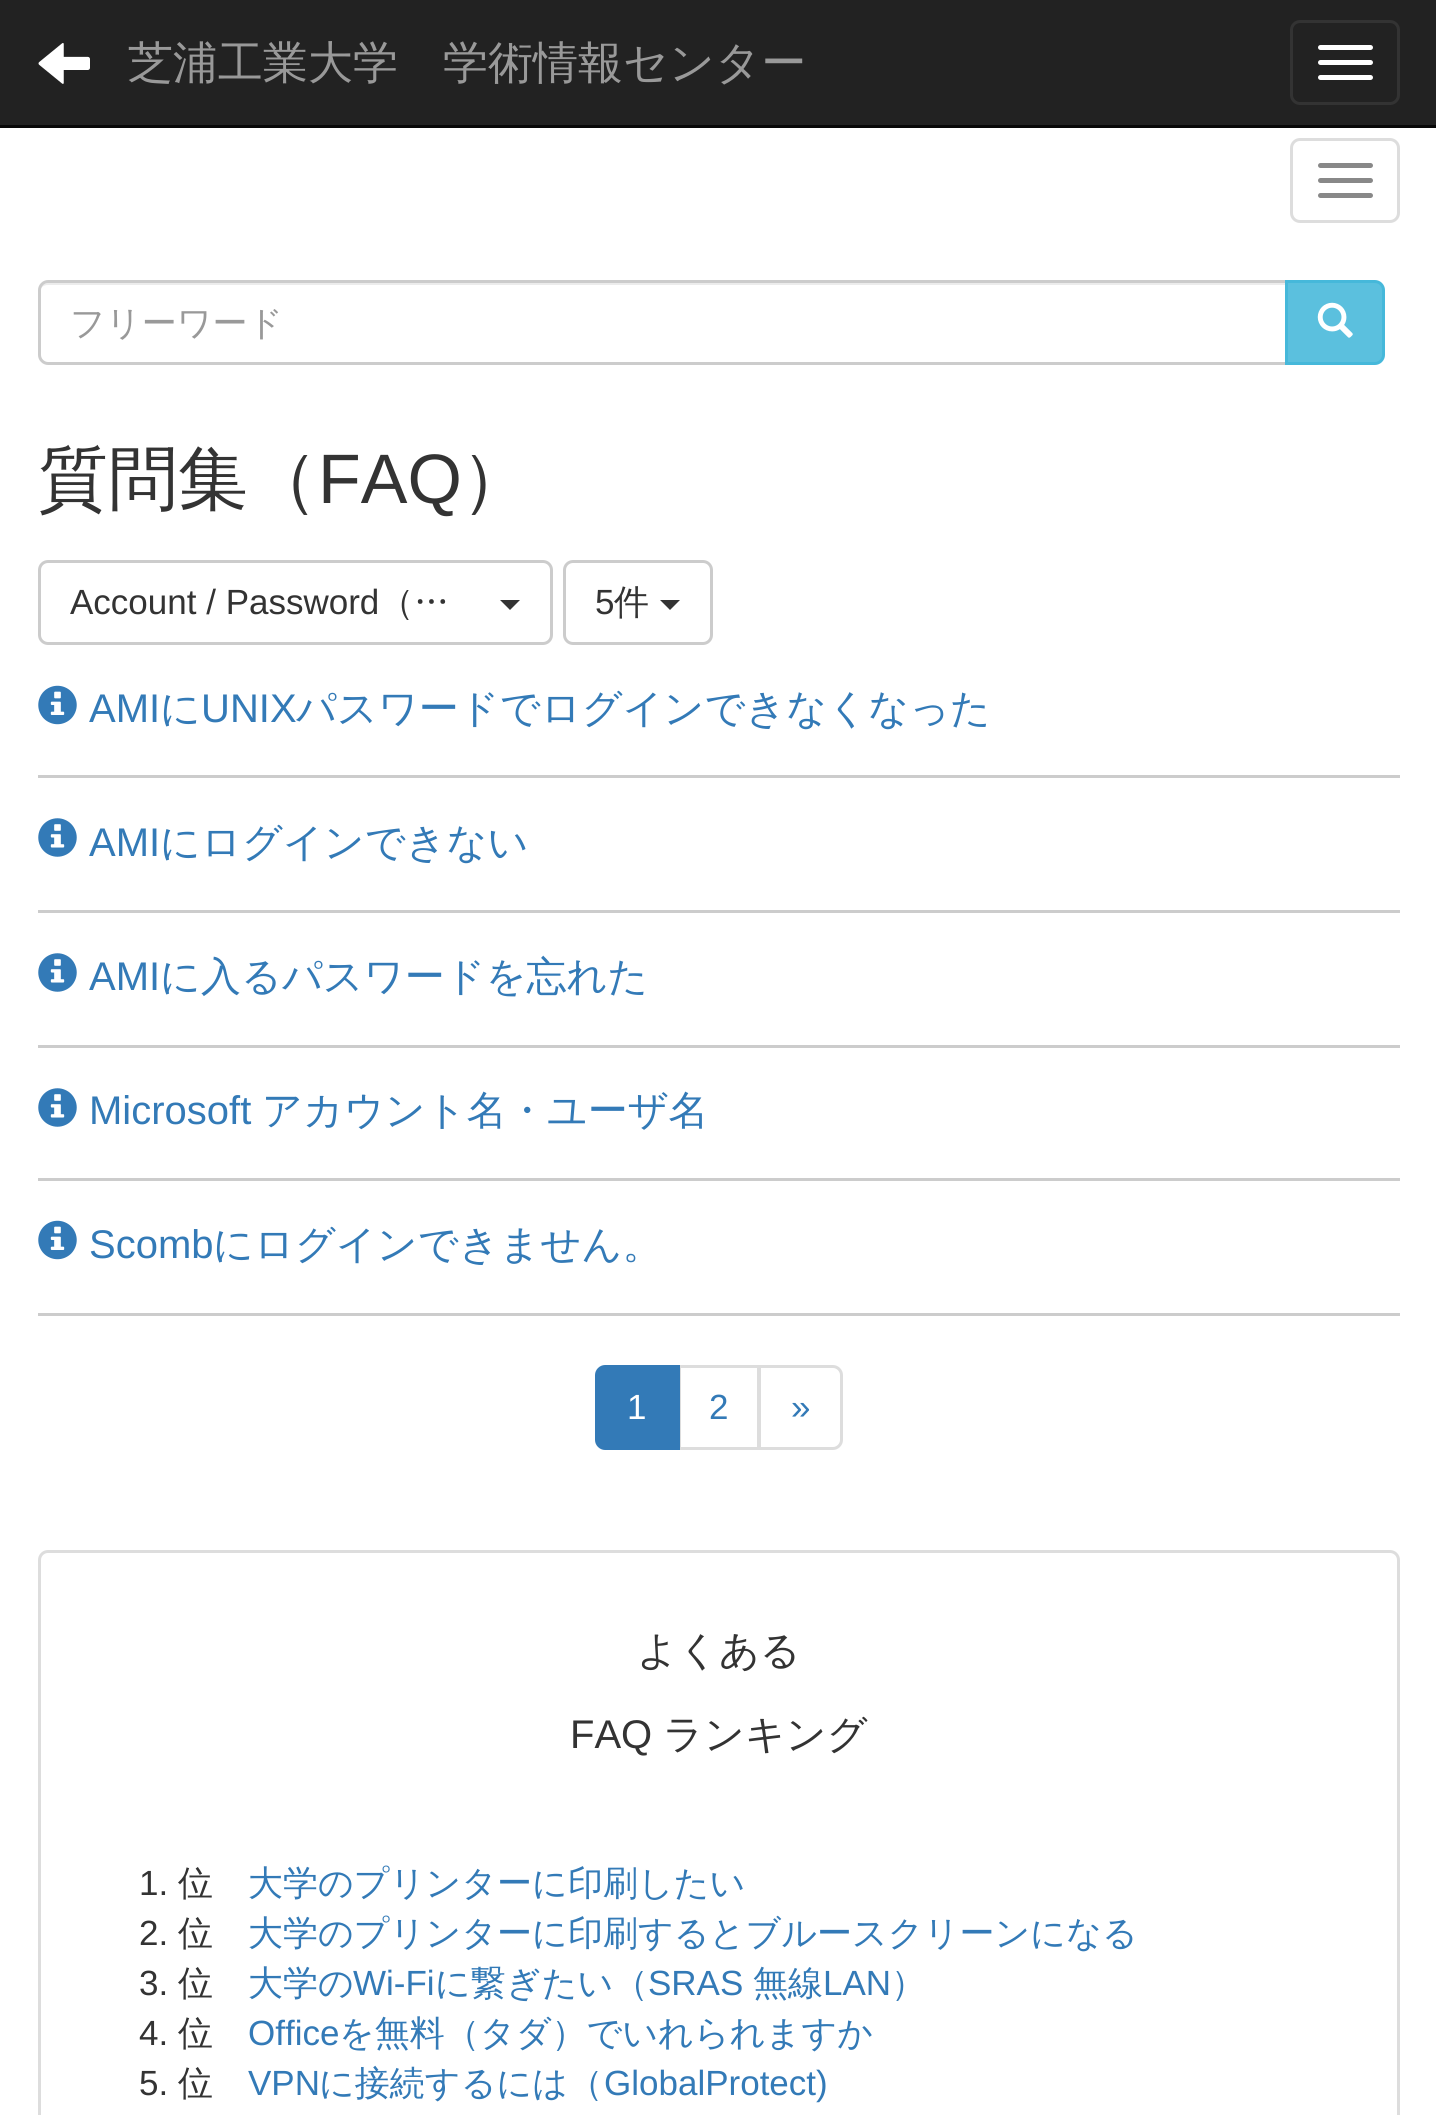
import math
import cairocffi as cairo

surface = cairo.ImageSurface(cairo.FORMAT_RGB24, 1436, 2115)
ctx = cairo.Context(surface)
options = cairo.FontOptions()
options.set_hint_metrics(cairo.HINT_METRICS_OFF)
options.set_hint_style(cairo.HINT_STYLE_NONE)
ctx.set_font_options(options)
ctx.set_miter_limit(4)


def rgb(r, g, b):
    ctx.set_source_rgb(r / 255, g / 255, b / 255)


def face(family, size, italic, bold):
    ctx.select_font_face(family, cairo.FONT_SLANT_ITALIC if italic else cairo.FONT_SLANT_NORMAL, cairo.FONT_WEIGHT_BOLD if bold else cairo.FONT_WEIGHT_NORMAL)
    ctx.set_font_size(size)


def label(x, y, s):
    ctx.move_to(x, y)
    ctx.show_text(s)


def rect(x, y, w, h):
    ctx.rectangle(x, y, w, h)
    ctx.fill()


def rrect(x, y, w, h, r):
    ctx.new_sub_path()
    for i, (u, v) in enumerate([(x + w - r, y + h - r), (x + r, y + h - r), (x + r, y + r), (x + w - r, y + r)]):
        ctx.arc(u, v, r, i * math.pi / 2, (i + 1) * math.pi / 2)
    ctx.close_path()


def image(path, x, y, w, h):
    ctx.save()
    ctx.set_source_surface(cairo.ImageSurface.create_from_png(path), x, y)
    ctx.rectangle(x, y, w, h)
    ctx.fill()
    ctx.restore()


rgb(255, 255, 255)
ctx.paint()
rgb(34, 34, 34)
rect(0, 0, 1436, 125)
rgb(8, 8, 8)
rect(0, 125, 1436, 3)
image('image0.png', 38, 43, 52, 41)
face('WenQuanYi Zen Hei Medium', 45, 0, 0)
rgb(153, 153, 153)
label(128, 78, '芝浦工業大学　学術情報センター')
rrect(1291.5, 21.5, 107, 82, 8.5)
rgb(51, 51, 51)
ctx.set_line_width(3)
ctx.stroke()
rgb(255, 255, 255)
rrect(1318, 45, 55, 5, 2.5)
ctx.fill()
rrect(1318, 60, 55, 5, 2.5)
ctx.fill()
rrect(1318, 75, 55, 5, 2.5)
ctx.fill()
rrect(1291.5, 139.5, 107, 82, 8.5)
rgb(221, 221, 221)
ctx.stroke()
rgb(136, 136, 136)
rrect(1318, 163, 55, 5, 2.5)
ctx.fill()
rrect(1318, 178, 55, 5, 2.5)
ctx.fill()
rrect(1318, 193, 55, 5, 2.5)
ctx.fill()
rgb(236, 236, 236)
ctx.new_path()
ctx.move_to(48, 285)
ctx.line_to(1285, 285)
ctx.line_to(1285, 283)
ctx.line_to(48, 283)
ctx.curve_to(43, 283, 40, 287, 40, 292)
ctx.curve_to(40, 288, 43, 285, 48, 285)
ctx.close_path()
ctx.fill()
ctx.new_path()
ctx.move_to(48, 281.5)
ctx.line_to(1286.5, 281.5)
ctx.line_to(1286.5, 363.5)
ctx.line_to(48, 363.5)
ctx.curve_to(43.5, 363.5, 39.5, 359.5, 39.5, 355)
ctx.line_to(39.5, 290)
ctx.curve_to(39.5, 285.5, 43.5, 281.5, 48, 281.5)
ctx.close_path()
rgb(204, 204, 204)
ctx.stroke()
face('WenQuanYi Zen Hei Medium', 35, 0, 0)
rgb(153, 153, 153)
label(70, 335, 'フリーワード')
rgb(91, 192, 222)
ctx.new_path()
ctx.move_to(1286.5, 281.5)
ctx.line_to(1375, 281.5)
ctx.curve_to(1379.5, 281.5, 1383.5, 285.5, 1383.5, 290)
ctx.line_to(1383.5, 355)
ctx.curve_to(1383.5, 359.5, 1379.5, 363.5, 1375, 363.5)
ctx.line_to(1286.5, 363.5)
ctx.close_path()
ctx.fill_preserve()
rgb(70, 184, 218)
ctx.stroke()
image('image1.png', 1317, 302, 36, 36)
face('WenQuanYi Zen Hei Medium', 70, 0, 0)
rgb(51, 51, 51)
label(38, 503, '質問集（')
face('Liberation Sans', 70, 0, 0)
label(318, 503, 'FAQ')
face('WenQuanYi Zen Hei Medium', 70, 0, 0)
label(461, 503, '）')
rrect(39.5, 561.5, 512, 82, 8.5)
rgb(204, 204, 204)
ctx.stroke()
face('Liberation Sans', 35, 0, 0)
rgb(51, 51, 51)
label(70, 614, 'Account / Password')
face('WenQuanYi Zen Hei Medium', 35, 0, 0)
label(379, 614, '（…')
ctx.new_path()
ctx.move_to(500, 600)
ctx.line_to(520, 600)
ctx.line_to(510, 610)
ctx.close_path()
ctx.fill()
rrect(564.5, 561.5, 147, 82, 8.5)
rgb(204, 204, 204)
ctx.stroke()
face('Liberation Sans', 35, 0, 0)
rgb(51, 51, 51)
label(595, 614, '5')
face('WenQuanYi Zen Hei Medium', 35, 0, 0)
label(614, 614, '件')
ctx.new_path()
ctx.move_to(660, 600)
ctx.line_to(680, 600)
ctx.line_to(670, 610)
ctx.close_path()
ctx.fill()
rgb(204, 204, 204)
rect(38, 775, 1362, 3)
image('image2.png', 38, 685, 39, 40)
face('Liberation Sans', 40, 0, 0)
rgb(51, 122, 183)
label(89, 722, 'AMI')
face('WenQuanYi Zen Hei Medium', 40, 0, 0)
label(160, 722, 'に')
face('Liberation Sans', 40, 0, 0)
label(201, 722, 'UNIX')
face('WenQuanYi Zen Hei Medium', 40, 0, 0)
label(296, 722, 'パスワードでログインできなくなった')
rgb(204, 204, 204)
rect(38, 910, 1362, 3)
image('image3.png', 38, 818, 39, 39)
face('Liberation Sans', 40, 0, 0)
rgb(51, 122, 183)
label(89, 856, 'AMI')
face('WenQuanYi Zen Hei Medium', 40, 0, 0)
label(160, 856, 'にログインできない')
rgb(204, 204, 204)
rect(38, 1045, 1362, 3)
image('image3.png', 38, 953, 39, 39)
face('Liberation Sans', 40, 0, 0)
rgb(51, 122, 183)
label(89, 990, 'AMI')
face('WenQuanYi Zen Hei Medium', 40, 0, 0)
label(160, 990, 'に入るパスワードを忘れた')
rgb(204, 204, 204)
rect(38, 1178, 1362, 3)
image('image3.png', 38, 1088, 39, 39)
face('Liberation Sans', 40, 0, 0)
rgb(51, 122, 183)
label(89, 1124, 'Microsoft')
face('WenQuanYi Zen Hei Medium', 40, 0, 0)
label(262, 1124, 'アカウント名・ユーザ名')
rgb(204, 204, 204)
rect(38, 1313, 1362, 3)
image('image2.png', 38, 1220, 39, 40)
face('Liberation Sans', 40, 0, 0)
rgb(51, 122, 183)
label(89, 1258, 'Scomb')
face('WenQuanYi Zen Hei Medium', 40, 0, 0)
label(213, 1258, 'にログインできません。')
ctx.rectangle(679.5, 1366.5, 79, 82)
rgb(221, 221, 221)
ctx.stroke()
rgb(51, 122, 183)
ctx.new_path()
ctx.move_to(605, 1366.5)
ctx.line_to(678.5, 1366.5)
ctx.line_to(678.5, 1448.5)
ctx.line_to(605, 1448.5)
ctx.curve_to(600.5, 1448.5, 596.5, 1444.5, 596.5, 1440)
ctx.line_to(596.5, 1375)
ctx.curve_to(596.5, 1370.5, 600.5, 1366.5, 605, 1366.5)
ctx.close_path()
ctx.fill_preserve()
ctx.stroke()
face('Liberation Sans', 35, 0, 0)
rgb(255, 255, 255)
label(627, 1419, '1')
rgb(51, 122, 183)
label(709, 1419, '2')
rgb(255, 255, 255)
ctx.new_path()
ctx.move_to(759.5, 1366.5)
ctx.line_to(833, 1366.5)
ctx.curve_to(837.5, 1366.5, 841.5, 1370.5, 841.5, 1375)
ctx.line_to(841.5, 1440)
ctx.curve_to(841.5, 1444.5, 837.5, 1448.5, 833, 1448.5)
ctx.line_to(759.5, 1448.5)
ctx.close_path()
ctx.fill_preserve()
rgb(221, 221, 221)
ctx.stroke()
rgb(51, 122, 183)
label(791, 1419, '»')
rrect(39.5, 1551.5, 1359, 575, 8.5)
rgb(221, 221, 221)
ctx.stroke()
face('WenQuanYi Zen Hei Medium', 40, 0, 0)
rgb(51, 51, 51)
label(637, 1664, 'よくある')
face('Liberation Sans', 40, 0, 0)
label(570, 1748, 'FAQ')
face('WenQuanYi Zen Hei Medium', 40, 0, 0)
label(663, 1748, 'ランキング')
face('Liberation Sans', 35, 0, 0)
label(139, 1895, '1.')
face('WenQuanYi Zen Hei Medium', 35, 0, 0)
label(178, 1895, '位')
rgb(51, 122, 183)
label(248, 1895, '大学のプリンターに印刷したい')
face('Liberation Sans', 35, 0, 0)
rgb(51, 51, 51)
label(139, 1945, '2.')
face('WenQuanYi Zen Hei Medium', 35, 0, 0)
label(178, 1945, '位')
rgb(51, 122, 183)
label(248, 1945, '大学のプリンターに印刷するとブルースクリーンになる')
face('Liberation Sans', 35, 0, 0)
rgb(51, 51, 51)
label(139, 1995, '3.')
face('WenQuanYi Zen Hei Medium', 35, 0, 0)
label(178, 1995, '位')
rgb(51, 122, 183)
label(248, 1995, '大学の')
face('Liberation Sans', 35, 0, 0)
label(353, 1995, 'Wi-Fi')
face('WenQuanYi Zen Hei Medium', 35, 0, 0)
label(435, 1995, 'に繋ぎたい（')
face('Liberation Sans', 35, 0, 0)
label(648, 1995, 'SRAS')
face('WenQuanYi Zen Hei Medium', 35, 0, 0)
label(753, 1995, '無線')
face('Liberation Sans', 35, 0, 0)
label(823, 1995, 'LAN')
face('WenQuanYi Zen Hei Medium', 35, 0, 0)
label(891, 1995, '）')
face('Liberation Sans', 35, 0, 0)
rgb(51, 51, 51)
label(139, 2045, '4.')
face('WenQuanYi Zen Hei Medium', 35, 0, 0)
label(178, 2045, '位')
face('Liberation Sans', 35, 0, 0)
rgb(51, 122, 183)
label(248, 2045, 'Office')
face('WenQuanYi Zen Hei Medium', 35, 0, 0)
label(339, 2045, 'を無料（タダ）でいれられますか')
face('Liberation Sans', 35, 0, 0)
rgb(51, 51, 51)
label(139, 2095, '5.')
face('WenQuanYi Zen Hei Medium', 35, 0, 0)
label(178, 2095, '位')
face('Liberation Sans', 35, 0, 0)
rgb(51, 122, 183)
label(248, 2095, 'VPN')
face('WenQuanYi Zen Hei Medium', 35, 0, 0)
label(319, 2095, 'に接続するには（')
face('Liberation Sans', 35, 0, 0)
label(604, 2095, 'GlobalProtect)')
surface.write_to_png('render.png')
